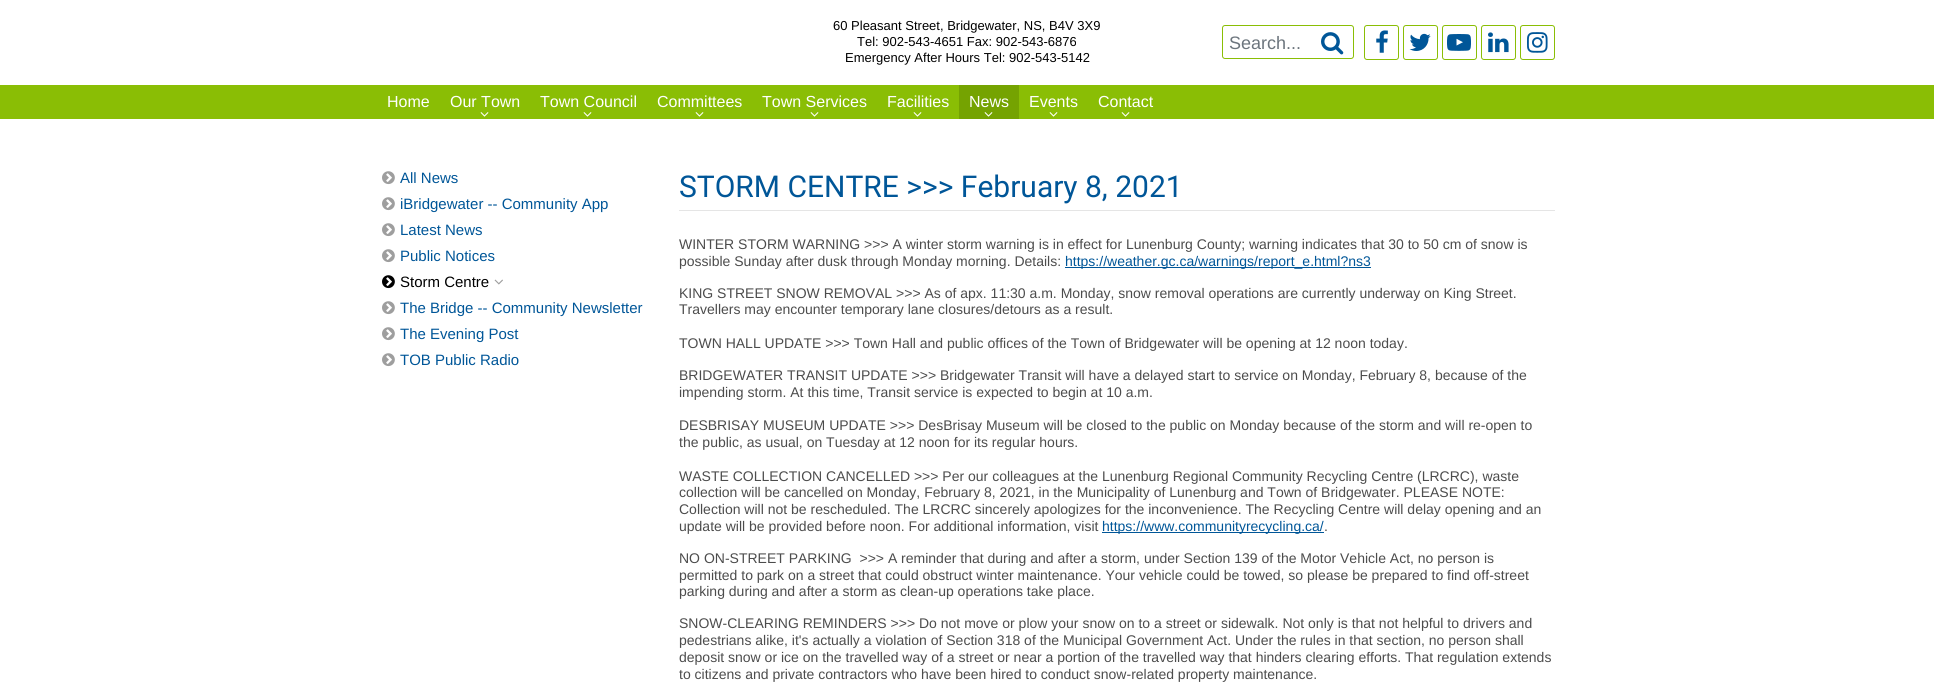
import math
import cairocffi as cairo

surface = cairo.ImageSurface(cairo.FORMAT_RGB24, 1934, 688)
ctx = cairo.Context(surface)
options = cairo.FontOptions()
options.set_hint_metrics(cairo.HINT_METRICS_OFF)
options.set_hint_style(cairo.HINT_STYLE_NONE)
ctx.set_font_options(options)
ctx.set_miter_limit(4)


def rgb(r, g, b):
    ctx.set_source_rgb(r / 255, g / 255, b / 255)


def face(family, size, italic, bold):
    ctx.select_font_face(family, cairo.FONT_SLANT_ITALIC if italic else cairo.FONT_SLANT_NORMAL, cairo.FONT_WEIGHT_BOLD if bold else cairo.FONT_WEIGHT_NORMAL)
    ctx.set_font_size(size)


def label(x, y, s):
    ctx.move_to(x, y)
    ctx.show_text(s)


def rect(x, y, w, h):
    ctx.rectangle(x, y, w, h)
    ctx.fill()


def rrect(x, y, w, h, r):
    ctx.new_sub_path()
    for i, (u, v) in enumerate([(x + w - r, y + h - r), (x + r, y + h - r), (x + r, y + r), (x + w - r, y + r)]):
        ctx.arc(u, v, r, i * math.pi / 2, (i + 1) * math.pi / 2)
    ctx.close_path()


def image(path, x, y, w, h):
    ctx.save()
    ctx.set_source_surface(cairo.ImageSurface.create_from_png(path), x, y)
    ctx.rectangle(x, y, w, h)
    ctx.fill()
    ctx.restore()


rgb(255, 255, 255)
ctx.paint()
face('Liberation Sans', 13, 0, 0)
rgb(0, 0, 0)
label(833, 30, '60 Pleasant Street, Bridgewater, NS, B4V 3X9')
label(857, 46, 'Tel: 902-543-4651 Fax: 902-543-6876')
label(845, 62, 'Emergency After Hours Tel: 902-543-5142')
rrect(1222.5, 25.5, 131, 33, 2.5)
rgb(138, 190, 5)
ctx.set_line_width(1)
ctx.stroke()
face('Liberation Sans', 18, 0, 0)
rgb(108, 117, 125)
label(1229, 49, 'Search...')
image('image0.png', 1321, 32, 23, 23)
rrect(1364.5, 25.5, 34, 34, 2.5)
rgb(138, 190, 5)
ctx.stroke()
image('image1.png', 1376, 30, 12, 23)
rrect(1403.5, 25.5, 34, 34, 2.5)
ctx.stroke()
image('image2.png', 1409, 33, 22, 18)
rrect(1442.5, 25.5, 34, 34, 2.5)
ctx.stroke()
image('image3.png', 1447, 34, 24, 17)
rrect(1481.5, 25.5, 34, 34, 2.5)
ctx.stroke()
image('image4.png', 1488, 32, 21, 21)
rrect(1520.5, 25.5, 34, 34, 2.5)
ctx.stroke()
image('image5.png', 1527, 32, 21, 21)
rect(0, 85, 1934, 34)
face('Liberation Sans', 16, 0, 0)
rgb(255, 255, 255)
label(387, 107, 'Home')
label(450, 107, 'Our Town')
image('image6.png', 480, 112, 9, 5)
label(540, 107, 'Town Council')
image('image6.png', 583, 112, 9, 5)
label(657, 107, 'Committees')
image('image6.png', 695, 112, 9, 5)
label(762, 107, 'Town Services')
image('image6.png', 810, 112, 9, 5)
label(887, 107, 'Facilities')
image('image6.png', 913, 112, 9, 5)
rgb(117, 163, 1)
rect(959, 85, 60, 34)
rgb(255, 255, 255)
label(969, 107, 'News')
image('image7.png', 984, 112, 9, 5)
label(1029, 107, 'Events')
image('image6.png', 1049, 112, 9, 5)
label(1098, 107, 'Contact')
image('image6.png', 1121, 112, 9, 5)
image('image8.png', 382, 171, 13, 14)
face('Liberation Sans', 15, 0, 0)
rgb(0, 86, 152)
label(400, 183, 'All News')
image('image8.png', 382, 197, 13, 14)
label(400, 209, 'iBridgewater -- Community App')
image('image8.png', 382, 223, 13, 14)
label(400, 235, 'Latest News')
image('image8.png', 382, 249, 13, 14)
label(400, 261, 'Public Notices')
image('image9.png', 382, 275, 13, 14)
rgb(0, 0, 0)
label(400, 287, 'Storm Centre')
image('image10.png', 494, 279, 9, 6)
image('image8.png', 382, 301, 13, 14)
rgb(0, 86, 152)
label(400, 313, 'The Bridge -- Community Newsletter')
image('image8.png', 382, 327, 13, 14)
label(400, 339, 'The Evening Post')
image('image8.png', 382, 353, 13, 14)
label(400, 365, 'TOB Public Radio')
rgb(229, 229, 229)
rect(679, 210, 876, 1)
face('Roboto', 30, 0, 0)
rgb(0, 86, 152)
label(679, 197, 'STORM CENTRE >>> February 8, 2021')
face('Liberation Sans', 14, 0, 0)
rgb(76, 76, 76)
label(679, 249, 'WINTER STORM WARNING >>> A winter storm warning is in effect for Lunenburg County; warning indicates that 30 to 50 cm of snow is')
label(679, 266, 'possible Sunday after dusk through Monday morning. Details:')
rgb(0, 86, 152)
rect(1065, 267, 306, 1)
label(1065, 266, 'https://weather.gc.ca/warnings/report_e.html?ns3')
rgb(76, 76, 76)
label(679, 298, 'KING STREET SNOW REMOVAL >>> As of apx. 11:30 a.m. Monday, snow removal operations are currently underway on King Street.')
label(679, 314, 'Travellers may encounter temporary lane closures/detours as a result.')
label(679, 348, 'TOWN HALL UPDATE >>> Town Hall and public offices of the Town of Bridgewater will be opening at 12 noon today.')
label(679, 380, 'BRIDGEWATER TRANSIT UPDATE >>> Bridgewater Transit will have a delayed start to service on Monday, February 8, because of the')
label(679, 397, 'impending storm. At this time, Transit service is expected to begin at 10 a.m.')
label(679, 430, 'DESBRISAY MUSEUM UPDATE >>> DesBrisay Museum will be closed to the public on Monday because of the storm and will re-open to')
label(679, 447, 'the public, as usual, on Tuesday at 12 noon for its regular hours.')
label(679, 481, 'WASTE COLLECTION CANCELLED >>> Per our colleagues at the Lunenburg Regional Community Recycling Centre (LRCRC), waste')
label(679, 497, 'collection will be cancelled on Monday, February 8, 2021, in the Municipality of Lunenburg and Town of Bridgewater. PLEASE NOTE:')
label(679, 514, 'Collection will not be rescheduled. The LRCRC sincerely apologizes for the inconvenience. The Recycling Centre will delay opening and an')
label(679, 531, 'update will be provided before noon. For additional information, visit')
rgb(0, 86, 152)
rect(1102, 532, 222, 1)
label(1102, 531, 'https://www.communityrecycling.ca/')
rgb(76, 76, 76)
label(1324, 531, '.')
label(679, 563, 'NO ON-STREET PARKING  >>> A reminder that during and after a storm, under Section 139 of the Motor Vehicle Act, no person is')
label(679, 580, 'permitted to park on a street that could obstruct winter maintenance. Your vehicle could be towed, so please be prepared to find off-street')
label(679, 596, 'parking during and after a storm as clean-up operations take place.')
label(679, 628, 'SNOW-CLEARING REMINDERS >>> Do not move or plow your snow on to a street or sidewalk. Not only is that not helpful to drivers and')
label(679, 645, 'pedestrians alike, it\'s actually a violation of Section 318 of the Municipal Government Act. Under the rules in that section, no person shall')
label(679, 662, 'deposit snow or ice on the travelled way of a street or near a portion of the travelled way that hinders clearing efforts. That regulation extends')
label(679, 679, 'to citizens and private contractors who have been hired to conduct snow-related property maintenance.')
surface.write_to_png('render.png')
